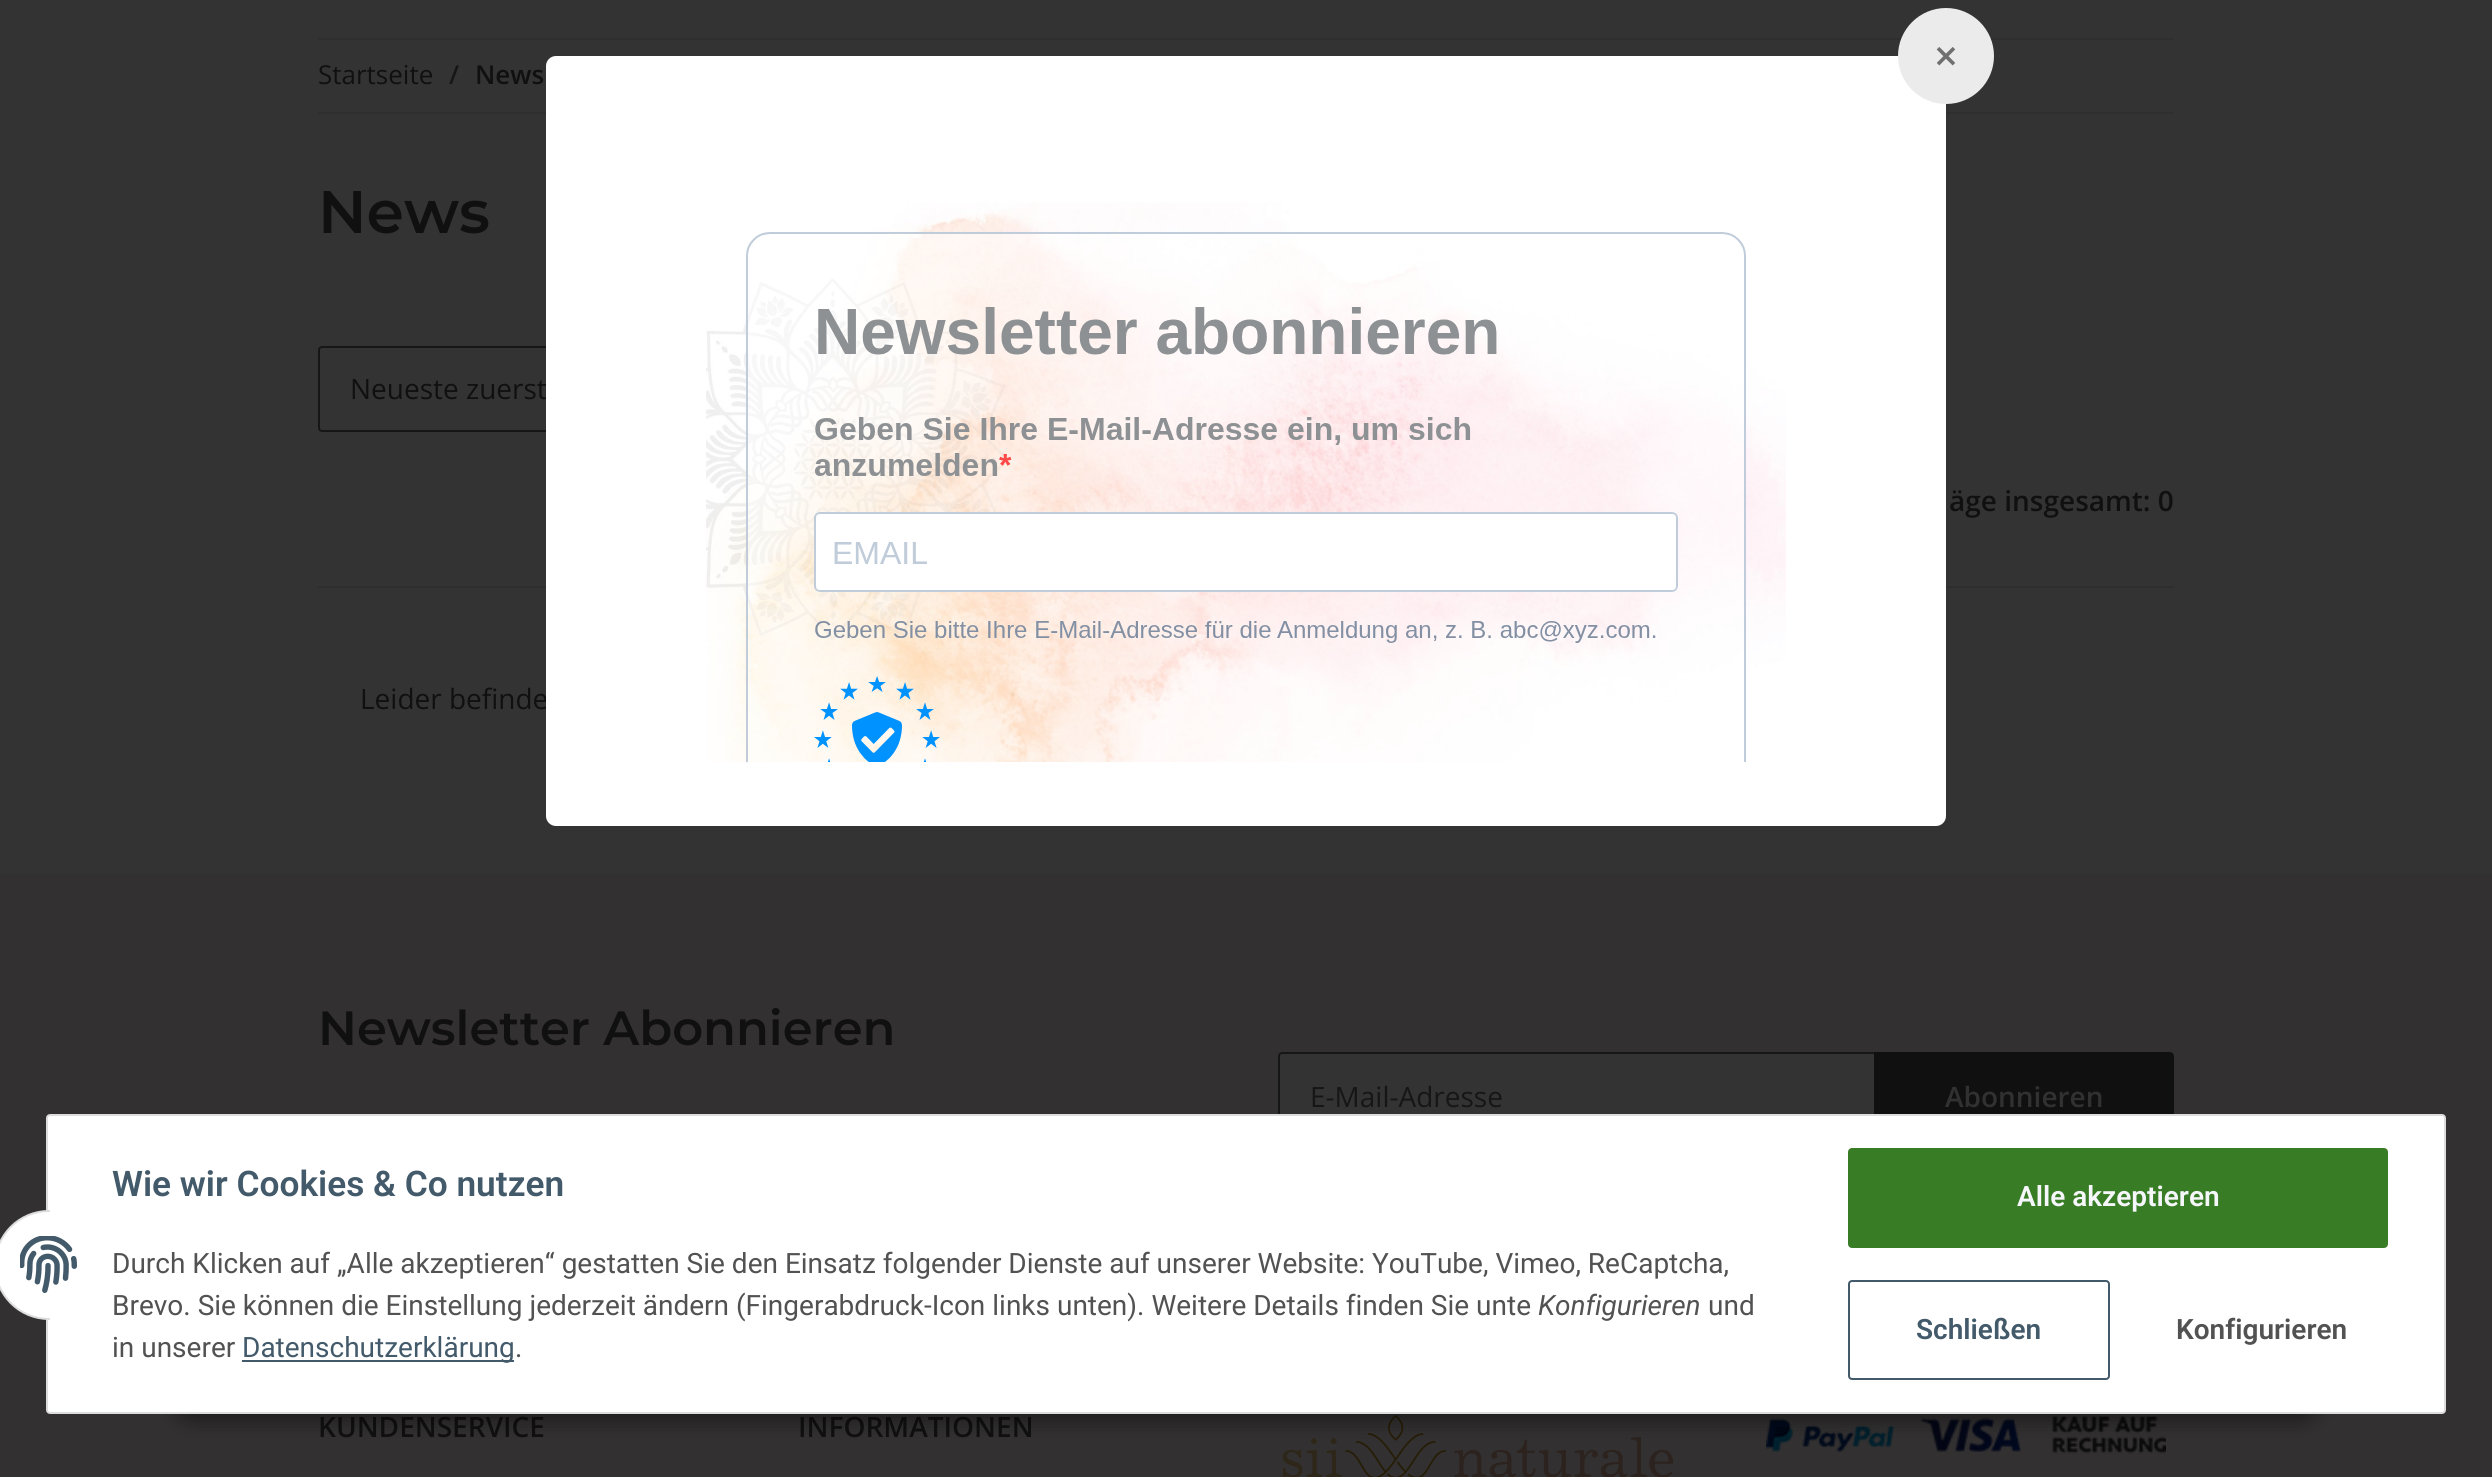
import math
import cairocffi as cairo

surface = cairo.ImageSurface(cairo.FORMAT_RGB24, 2492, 1477)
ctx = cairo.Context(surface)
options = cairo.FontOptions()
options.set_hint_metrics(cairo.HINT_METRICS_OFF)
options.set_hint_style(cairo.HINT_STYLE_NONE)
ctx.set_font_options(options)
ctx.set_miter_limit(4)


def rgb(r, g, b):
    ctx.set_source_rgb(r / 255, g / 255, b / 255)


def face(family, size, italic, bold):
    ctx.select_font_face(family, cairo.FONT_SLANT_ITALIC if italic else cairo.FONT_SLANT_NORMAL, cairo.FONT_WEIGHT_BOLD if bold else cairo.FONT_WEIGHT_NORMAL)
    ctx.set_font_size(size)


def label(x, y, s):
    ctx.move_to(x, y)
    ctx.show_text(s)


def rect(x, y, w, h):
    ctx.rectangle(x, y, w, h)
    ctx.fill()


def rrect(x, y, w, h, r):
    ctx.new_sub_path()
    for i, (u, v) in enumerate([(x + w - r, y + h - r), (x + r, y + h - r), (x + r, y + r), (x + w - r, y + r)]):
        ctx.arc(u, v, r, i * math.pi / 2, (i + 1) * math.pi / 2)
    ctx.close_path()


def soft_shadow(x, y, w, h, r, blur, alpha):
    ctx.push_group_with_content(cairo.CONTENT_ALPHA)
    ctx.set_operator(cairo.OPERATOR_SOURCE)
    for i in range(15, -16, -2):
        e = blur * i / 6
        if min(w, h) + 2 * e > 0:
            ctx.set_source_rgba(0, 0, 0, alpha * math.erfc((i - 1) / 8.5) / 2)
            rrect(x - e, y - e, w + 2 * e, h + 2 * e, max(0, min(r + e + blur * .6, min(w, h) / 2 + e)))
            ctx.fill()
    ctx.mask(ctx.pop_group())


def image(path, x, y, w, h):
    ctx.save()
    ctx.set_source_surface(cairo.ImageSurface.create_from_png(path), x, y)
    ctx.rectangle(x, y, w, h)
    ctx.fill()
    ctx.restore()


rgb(51, 51, 51)
ctx.paint()
rgb(47, 47, 47)
rect(318, 112, 1856, 2)
rrect(319, 347, 492, 84, 3)
rgb(22, 22, 22)
ctx.stroke()
face('Open Sans', 28, 0, 0)
rgb(16, 16, 16)
label(350, 399, 'Neueste zuerst')
rgb(46, 46, 46)
rect(318, 586, 1856, 2)
rgb(16, 16, 16)
label(360, 709, 'Leider befinde')
rgb(255, 255, 255)
rrect(546, 56, 1400, 770, 10)
ctx.fill()
rgb(47, 47, 47)
rect(318, 38, 1856, 2)
rgb(235, 235, 235)
ctx.arc(1946, 56, 48, 0, 2 * math.pi)
ctx.fill()
face('Open Sans SemiBold', 42, 0, 0)
rgb(112, 112, 112)
label(1934, 71, '×')
image('image0.png', 706, 202, 1080, 560)
face('Open Sans', 26, 0, 0)
rgb(16, 16, 16)
label(318, 84, 'Startseite')
face('Open Sans SemiBold', 26, 0, 0)
rgb(22, 22, 22)
label(449, 84, '/')
rgb(16, 16, 16)
label(475, 84, 'News')
face('Montserrat SemiBold', 60, 0, 0)
label(318, 233, 'News')
face('Open Sans SemiBold', 28, 0, 0)
label(1949, 511, 'äge insgesamt: 0')
rgb(50, 48, 48)
rect(0, 874, 2492, 603)
face('Montserrat SemiBold', 48, 0, 0)
rgb(16, 16, 16)
label(318, 1045, 'Newsletter Abonnieren')
rgb(51, 51, 51)
ctx.new_path()
ctx.move_to(1282, 1053)
ctx.line_to(1875, 1053)
ctx.line_to(1875, 1137)
ctx.line_to(1282, 1137)
ctx.curve_to(1280.5, 1137, 1279, 1135.5, 1279, 1134)
ctx.line_to(1279, 1056)
ctx.curve_to(1279, 1054.5, 1280.5, 1053, 1282, 1053)
ctx.close_path()
ctx.fill_preserve()
rgb(22, 22, 22)
ctx.stroke()
face('Open Sans', 28, 0, 0)
label(1310, 1107, 'E-Mail-Adresse')
rgb(16, 16, 16)
ctx.new_path()
ctx.move_to(1875, 1053)
ctx.line_to(2170, 1053)
ctx.curve_to(2171.5, 1053, 2173, 1054.5, 2173, 1056)
ctx.line_to(2173, 1134)
ctx.curve_to(2173, 1135.5, 2171.5, 1137, 2170, 1137)
ctx.line_to(1875, 1137)
ctx.close_path()
ctx.fill_preserve()
ctx.stroke()
face('Open Sans SemiBold', 28, 0, 0)
rgb(49, 49, 50)
label(1945, 1107, 'Abonnieren')
rgb(16, 16, 16)
label(318, 1437, 'KUNDENSERVICE')
label(798, 1437, 'INFORMATIONEN')
image('image1.png', 1282, 1415, 392, 62)
image('image2.png', 1766, 1416, 400, 38)
rgb(0, 0, 0)
soft_shadow(168, 1356, 2156, 64, 32, 10, 0.45)
rgb(255, 255, 255)
rrect(47, 1115, 2398, 298, 3)
ctx.fill_preserve()
rgb(221, 221, 221)
ctx.stroke()
rgb(255, 255, 255)
ctx.arc(49, 1265, 54, 0, 2 * math.pi)
ctx.fill_preserve()
rgb(221, 221, 221)
ctx.stroke()
rgb(255, 255, 255)
rect(50, 1210, 54, 110)
image('image3.png', 20, 1236, 57, 57)
face('Roboto SemiBold', 35.25, 0, 0)
rgb(67, 90, 107)
label(112, 1196, 'Wie wir Cookies & Co nutzen')
face('Roboto', 28, 0, 0)
rgb(82, 82, 82)
label(112, 1273, 'Durch Klicken auf „Alle akzeptieren“ gestatten Sie den Einsatz folgender Dienste auf unserer Website: YouTube, Vimeo, ReCaptcha,')
label(112, 1315, 'Brevo. Sie können die Einstellung jederzeit ändern (Fingerabdruck-Icon links unten). Weitere Details finden Sie unte')
face('Roboto', 28, 1, 0)
label(1538, 1315, 'Konfigurieren')
face('Roboto', 28, 0, 0)
label(1708, 1315, 'und')
label(112, 1357, 'in unserer')
rgb(67, 90, 107)
rect(242, 1360, 272, 2)
label(242, 1357, 'Datenschutzerklärung')
rgb(82, 82, 82)
label(515, 1357, '.')
rgb(57, 124, 38)
rrect(1849, 1149, 538, 98, 3)
ctx.fill_preserve()
ctx.stroke()
face('Roboto SemiBold', 28, 0, 0)
rgb(245, 247, 250)
label(2017, 1206, 'Alle akzeptieren')
rrect(1849, 1281, 260, 98, 3)
rgb(67, 90, 107)
ctx.stroke()
label(1916, 1339, 'Schließen')
rgb(82, 82, 82)
label(2176, 1339, 'Konfigurieren')
surface.write_to_png('render.png')
